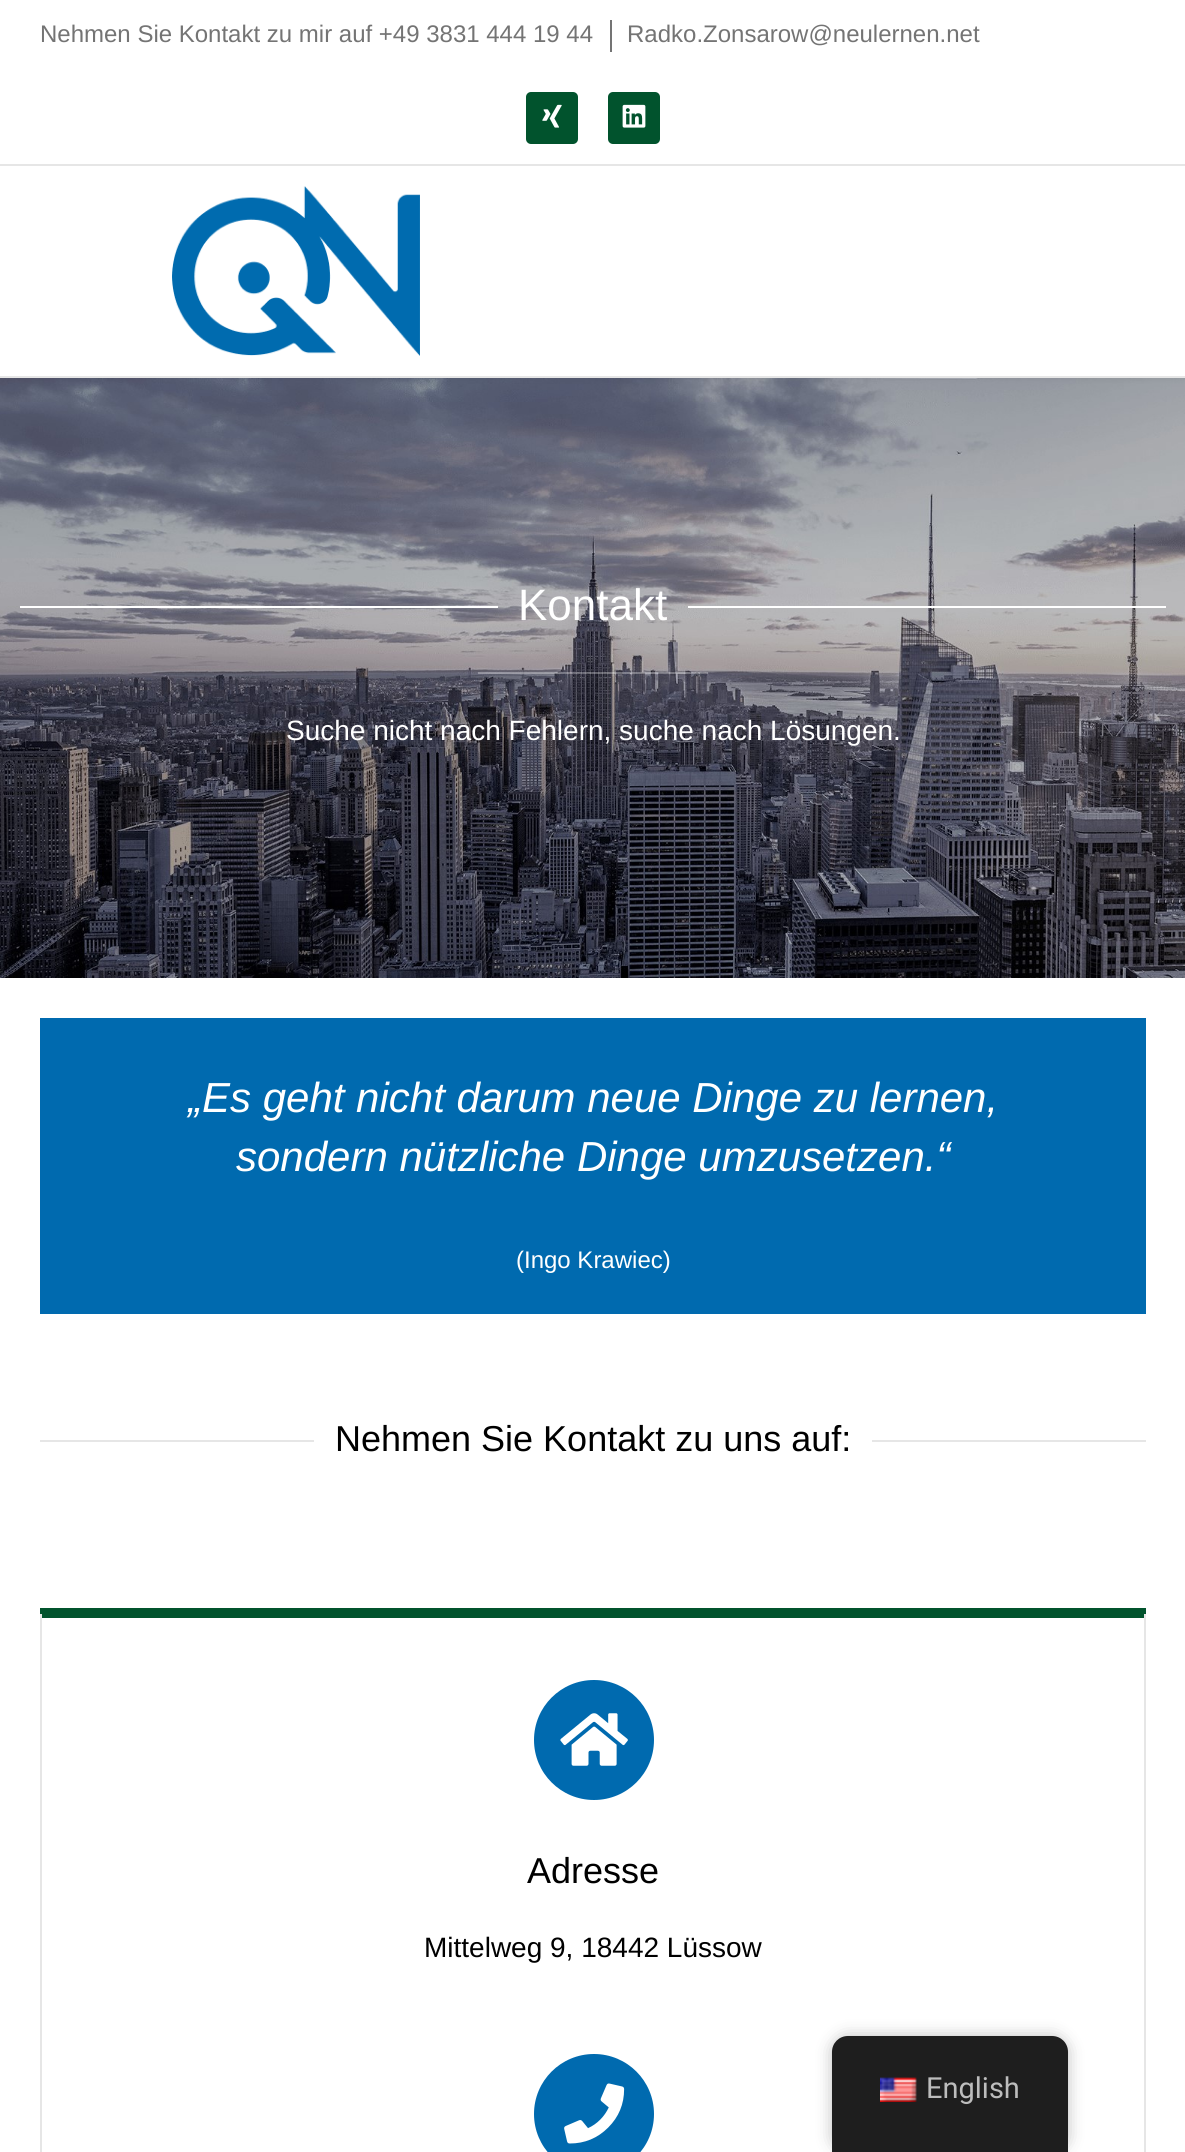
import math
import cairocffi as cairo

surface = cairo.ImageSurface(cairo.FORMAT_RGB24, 1185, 2152)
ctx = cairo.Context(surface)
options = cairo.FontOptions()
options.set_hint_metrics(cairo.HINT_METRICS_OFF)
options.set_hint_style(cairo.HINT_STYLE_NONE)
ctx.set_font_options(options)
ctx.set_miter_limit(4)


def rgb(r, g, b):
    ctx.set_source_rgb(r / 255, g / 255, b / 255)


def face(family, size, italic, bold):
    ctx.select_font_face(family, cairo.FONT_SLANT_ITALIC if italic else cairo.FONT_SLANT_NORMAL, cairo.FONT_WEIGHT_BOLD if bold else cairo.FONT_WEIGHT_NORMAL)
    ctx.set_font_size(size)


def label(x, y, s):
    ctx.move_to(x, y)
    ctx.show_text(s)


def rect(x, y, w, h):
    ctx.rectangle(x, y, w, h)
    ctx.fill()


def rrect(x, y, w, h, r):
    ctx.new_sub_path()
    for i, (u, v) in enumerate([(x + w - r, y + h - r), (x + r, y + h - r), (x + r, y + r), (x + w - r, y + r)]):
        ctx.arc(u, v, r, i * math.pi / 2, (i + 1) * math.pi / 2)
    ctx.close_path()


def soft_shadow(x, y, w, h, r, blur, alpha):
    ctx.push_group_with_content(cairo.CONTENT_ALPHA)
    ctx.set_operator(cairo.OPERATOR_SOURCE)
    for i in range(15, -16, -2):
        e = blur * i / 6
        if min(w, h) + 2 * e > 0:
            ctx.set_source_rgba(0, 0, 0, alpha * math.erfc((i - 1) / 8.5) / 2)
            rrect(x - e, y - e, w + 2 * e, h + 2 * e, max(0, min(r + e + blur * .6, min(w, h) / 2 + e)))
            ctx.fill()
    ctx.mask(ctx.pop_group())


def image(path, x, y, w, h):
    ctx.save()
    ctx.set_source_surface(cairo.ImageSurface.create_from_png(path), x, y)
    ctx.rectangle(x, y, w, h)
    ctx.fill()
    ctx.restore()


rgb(255, 255, 255)
ctx.paint()
face('Liberation Sans', 24, 0, 0)
rgb(116, 116, 116)
label(40, 42, 'Nehmen Sie Kontakt zu mir auf +49 3831 444 19 44')
rect(610, 20, 2, 32)
label(627, 42, 'Radko.Zonsarow@neulernen.net')
rgb(1, 83, 45)
rrect(526, 92, 52, 52, 5)
ctx.fill()
image('image0.png', 542, 104, 20, 24)
rrect(608, 92, 52, 52, 5)
ctx.fill()
image('image1.png', 622, 104, 24, 24)
rgb(230, 230, 230)
rect(0, 164, 1185, 2)
rect(0, 376, 1185, 2)
image('image2.png', 172, 186, 248, 170)
image('image3.png', 0, 378, 1185, 600)
rgb(255, 255, 255)
rect(20, 606, 478, 2)
face('Liberation Sans', 44, 0, 0)
label(518, 620, 'Kontakt')
rect(688, 606, 478, 2)
ctx.set_source_rgba(1, 1, 1, 0.3)
rect(478, 672, 230, 2)
face('Liberation Sans', 28, 0, 0)
rgb(255, 255, 255)
label(286, 740, 'Suche nicht nach Fehlern, suche nach Lösungen.')
rgb(0, 106, 175)
rect(40, 1018, 1106, 296)
face('Liberation Sans', 42, 1, 0)
rgb(255, 255, 255)
label(188, 1112, '„Es geht nicht darum neue Dinge zu lernen,')
label(236, 1171, 'sondern nützliche Dinge umzusetzen.“')
face('Liberation Sans', 24, 0, 0)
label(516, 1268, '(Ingo Krawiec)')
rgb(230, 230, 230)
rect(40, 1440, 274, 2)
face('Liberation Sans', 36, 0, 0)
rgb(0, 0, 0)
label(335, 1451, 'Nehmen Sie Kontakt zu uns auf:')
rgb(230, 230, 230)
rect(872, 1440, 274, 2)
rgb(1, 83, 45)
rect(40, 1608, 1106, 10)
rgb(230, 230, 230)
rect(1144, 1614, 2, 538)
rect(40, 1614, 2, 538)
rgb(0, 106, 175)
ctx.new_path()
ctx.arc(594, 1740, 63, 0, 2 * math.pi)
ctx.fill_preserve()
rgb(255, 255, 255)
ctx.set_line_width(6)
ctx.stroke()
image('image4.png', 560, 1713, 68, 53)
rgb(0, 0, 0)
label(527, 1883, 'Adresse')
face('Liberation Sans', 28, 0, 0)
label(424, 1957, 'Mittelweg 9, 18442 Lüssow')
rgb(0, 106, 175)
ctx.new_path()
ctx.arc(594, 2114, 63, 0, 2 * math.pi)
ctx.fill_preserve()
rgb(255, 255, 255)
ctx.stroke()
image('image5.png', 564, 2083, 61, 61)
rgb(0, 0, 0)
soft_shadow(832, 2036, 236, 116, 16, 8, 0.25)
rgb(30, 30, 30)
ctx.new_path()
ctx.move_to(848, 2036)
ctx.line_to(1052, 2036)
ctx.curve_to(1061, 2036, 1068, 2043, 1068, 2052)
ctx.line_to(1068, 2152)
ctx.line_to(832, 2152)
ctx.line_to(832, 2052)
ctx.curve_to(832, 2043, 839, 2036, 848, 2036)
ctx.close_path()
ctx.fill()
image('image6.png', 880, 2077, 37, 25)
face('Roboto', 29, 0, 0)
rgb(189, 189, 189)
label(926, 2098, 'English')
surface.write_to_png('render.png')
